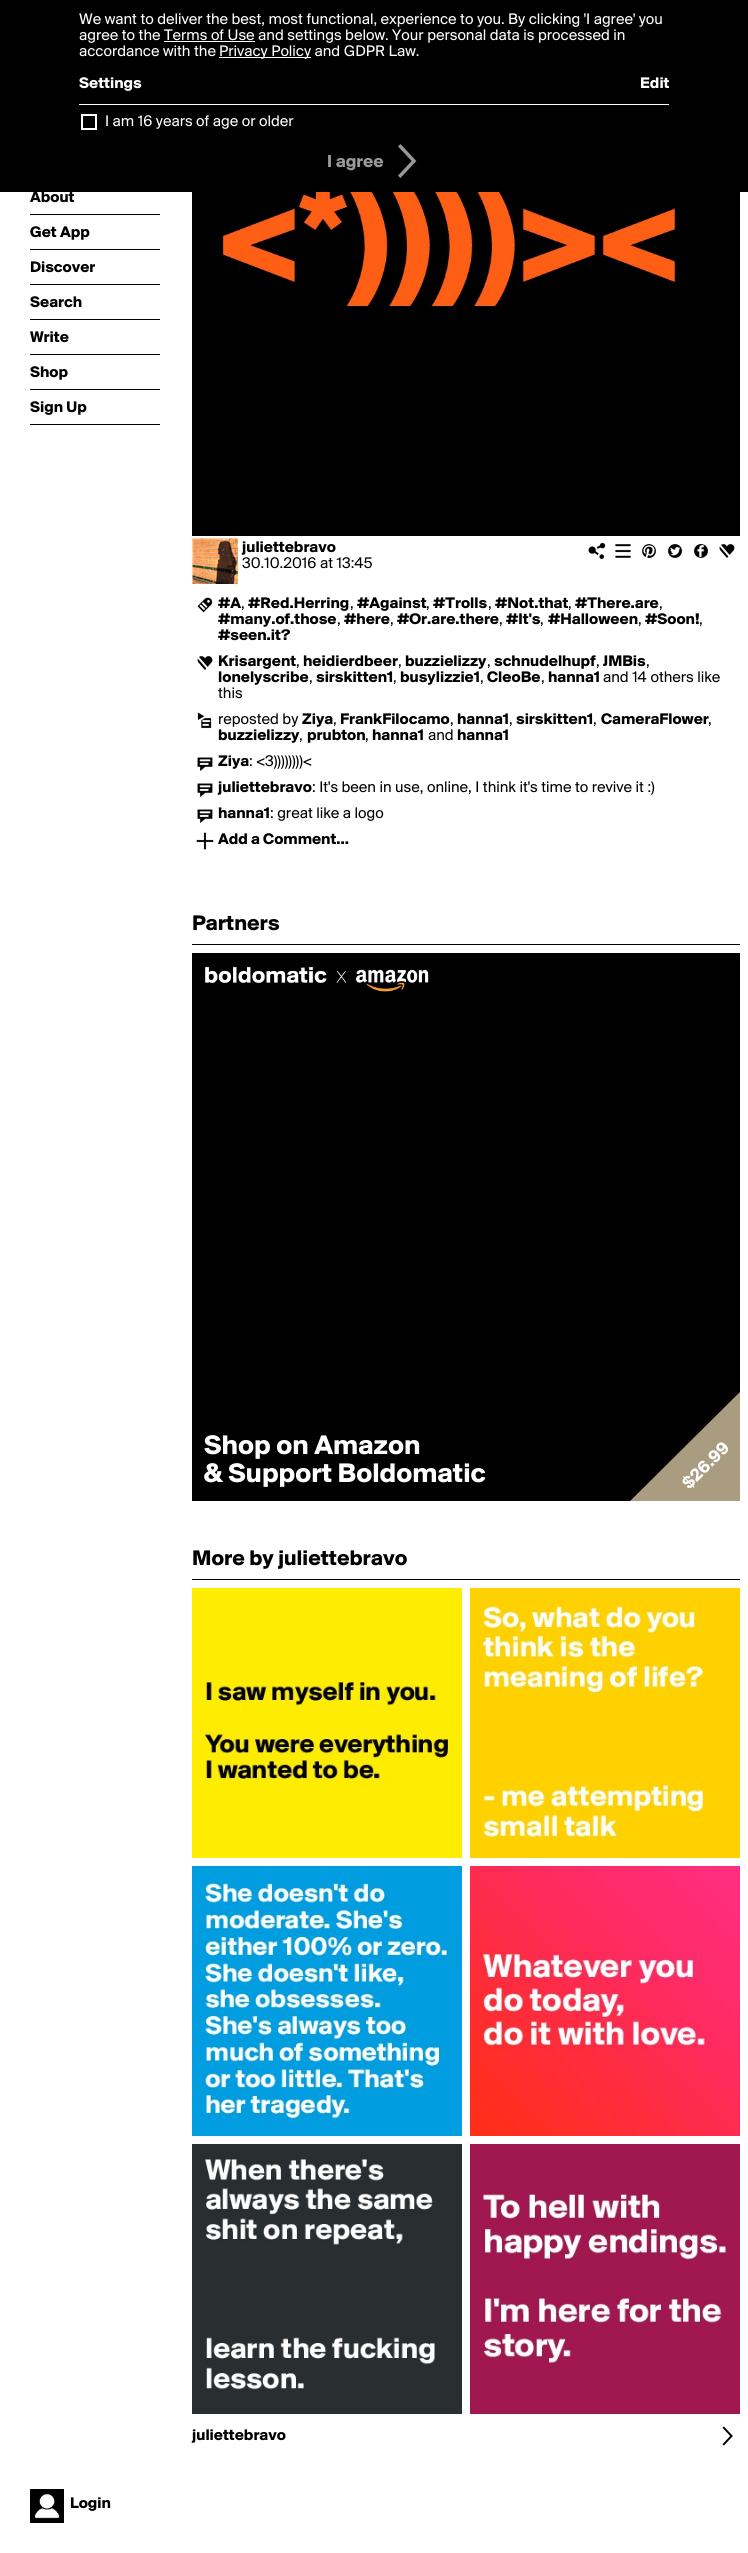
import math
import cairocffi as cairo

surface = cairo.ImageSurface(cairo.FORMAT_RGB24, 748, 2553)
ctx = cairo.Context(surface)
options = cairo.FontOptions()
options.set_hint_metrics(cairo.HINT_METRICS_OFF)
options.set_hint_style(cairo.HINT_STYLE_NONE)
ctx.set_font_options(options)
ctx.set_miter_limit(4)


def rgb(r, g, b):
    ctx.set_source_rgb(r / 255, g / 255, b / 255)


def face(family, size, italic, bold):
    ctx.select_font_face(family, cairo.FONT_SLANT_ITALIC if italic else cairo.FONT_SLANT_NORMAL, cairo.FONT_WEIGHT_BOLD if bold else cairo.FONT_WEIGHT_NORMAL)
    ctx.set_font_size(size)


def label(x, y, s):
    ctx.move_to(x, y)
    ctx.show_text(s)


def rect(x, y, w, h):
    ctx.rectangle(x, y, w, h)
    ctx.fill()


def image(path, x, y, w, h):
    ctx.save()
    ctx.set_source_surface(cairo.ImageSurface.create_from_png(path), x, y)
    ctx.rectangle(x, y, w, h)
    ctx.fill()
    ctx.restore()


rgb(255, 255, 255)
ctx.paint()
rgb(0, 0, 0)
rect(0, 0, 748, 192)
face('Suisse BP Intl', 16, 0, 0)
rgb(255, 255, 255)
label(79, 24, 'We want to deliver the best, most functional, experience to you. By clicking \'I agree\' you')
label(79, 40, 'agree to the Terms of Use and settings below. Your personal data is processed in')
rect(164, 41, 91, 1)
label(79, 56, 'accordance with the')
rect(219, 57, 92, 1)
label(219, 56, 'Privacy Policy and GDPR Law.')
face('Suisse BP Intl', 16, 0, 1)
label(79, 88, 'Settings')
label(640, 88, 'Edit')
rect(79, 104, 590, 1)
ctx.rectangle(82, 115, 14, 14)
ctx.stroke()
face('Suisse BP Intl', 16, 0, 0)
label(105, 126, 'I am 16 years of age or older')
face('Suisse BP Intl', 18, 0, 1)
rgb(153, 153, 153)
label(327, 167, 'I agree')
image('image0.png', 398, 144, 19, 34)
rgb(0, 0, 0)
rect(30, 214, 130, 1)
face('Suisse BP Intl', 16, 0, 1)
label(30, 202, 'About')
rect(30, 249, 130, 1)
label(30, 237, 'Get App')
rect(30, 284, 130, 1)
label(30, 272, 'Discover')
rect(30, 319, 130, 1)
label(30, 307, 'Search')
rect(30, 354, 130, 1)
label(30, 342, 'Write')
rect(30, 389, 130, 1)
label(30, 377, 'Shop')
rect(30, 424, 130, 1)
label(30, 412, 'Sign Up')
image('image1.png', 30, 2489, 34, 34)
label(70, 2508, 'Login')
image('image2.png', 192, 192, 548, 344)
image('image3.png', 192, 538, 46, 46)
label(242, 552, 'juliettebravo')
face('Suisse BP Intl', 16, 0, 0)
label(242, 568, '30.10.2016 at 13:45')
image('image4.png', 588, 542, 18, 18)
image('image5.png', 615, 544, 16, 14)
image('image6.png', 642, 544, 14, 14)
image('image7.png', 668, 544, 15, 14)
image('image8.png', 694, 543, 14, 15)
image('image9.png', 719, 544, 16, 14)
image('image10.png', 197, 597, 16, 16)
face('Suisse BP Intl', 16, 0, 1)
label(218, 608, '#A')
face('Suisse BP Intl', 16, 0, 0)
label(241, 608, ',')
face('Suisse BP Intl', 16, 0, 1)
label(248, 608, '#Red.Herring')
face('Suisse BP Intl', 16, 0, 0)
label(350, 608, ',')
face('Suisse BP Intl', 16, 0, 1)
label(357, 608, '#Against')
face('Suisse BP Intl', 16, 0, 0)
label(426, 608, ',')
face('Suisse BP Intl', 16, 0, 1)
label(433, 608, '#Trolls')
face('Suisse BP Intl', 16, 0, 0)
label(488, 608, ',')
face('Suisse BP Intl', 16, 0, 1)
label(495, 608, '#Not.that')
face('Suisse BP Intl', 16, 0, 0)
label(568, 608, ',')
face('Suisse BP Intl', 16, 0, 1)
label(575, 608, '#There.are')
face('Suisse BP Intl', 16, 0, 0)
label(659, 608, ',')
face('Suisse BP Intl', 16, 0, 1)
label(218, 624, '#many.of.those')
face('Suisse BP Intl', 16, 0, 0)
label(337, 624, ',')
face('Suisse BP Intl', 16, 0, 1)
label(344, 624, '#here')
face('Suisse BP Intl', 16, 0, 0)
label(390, 624, ',')
face('Suisse BP Intl', 16, 0, 1)
label(397, 624, '#Or.are.there')
face('Suisse BP Intl', 16, 0, 0)
label(499, 624, ',')
face('Suisse BP Intl', 16, 0, 1)
label(506, 624, '#It\'s')
face('Suisse BP Intl', 16, 0, 0)
label(540, 624, ',')
face('Suisse BP Intl', 16, 0, 1)
label(548, 624, '#Halloween')
face('Suisse BP Intl', 16, 0, 0)
label(638, 624, ',')
face('Suisse BP Intl', 16, 0, 1)
label(645, 624, '#Soon!')
face('Suisse BP Intl', 16, 0, 0)
label(699, 624, ',')
face('Suisse BP Intl', 16, 0, 1)
label(218, 640, '#seen.it?')
image('image9.png', 197, 656, 16, 14)
label(218, 666, 'Krisargent')
face('Suisse BP Intl', 16, 0, 0)
label(296, 666, ',')
face('Suisse BP Intl', 16, 0, 1)
label(303, 666, 'heidierdbeer')
face('Suisse BP Intl', 16, 0, 0)
label(398, 666, ',')
face('Suisse BP Intl', 16, 0, 1)
label(405, 666, 'buzzielizzy')
face('Suisse BP Intl', 16, 0, 0)
label(487, 666, ',')
face('Suisse BP Intl', 16, 0, 1)
label(494, 666, 'schnudelhupf')
face('Suisse BP Intl', 16, 0, 0)
label(596, 666, ',')
face('Suisse BP Intl', 16, 0, 1)
label(603, 666, 'JMBis')
face('Suisse BP Intl', 16, 0, 0)
label(646, 666, ',')
face('Suisse BP Intl', 16, 0, 1)
label(218, 682, 'lonelyscribe')
face('Suisse BP Intl', 16, 0, 0)
label(309, 682, ',')
face('Suisse BP Intl', 16, 0, 1)
label(316, 682, 'sirskitten1')
face('Suisse BP Intl', 16, 0, 0)
label(393, 682, ',')
face('Suisse BP Intl', 16, 0, 1)
label(400, 682, 'busylizzie1')
face('Suisse BP Intl', 16, 0, 0)
label(480, 682, ',')
face('Suisse BP Intl', 16, 0, 1)
label(487, 682, 'CleoBe')
face('Suisse BP Intl', 16, 0, 0)
label(541, 682, ',')
face('Suisse BP Intl', 16, 0, 1)
label(548, 682, 'hanna1')
face('Suisse BP Intl', 16, 0, 0)
label(603, 682, 'and 14 others like')
label(218, 698, 'this')
image('image11.png', 197, 712, 15, 17)
label(218, 724, 'reposted by')
face('Suisse BP Intl', 16, 0, 1)
label(302, 724, 'Ziya')
face('Suisse BP Intl', 16, 0, 0)
label(333, 724, ',')
face('Suisse BP Intl', 16, 0, 1)
label(340, 724, 'FrankFilocamo')
face('Suisse BP Intl', 16, 0, 0)
label(450, 724, ',')
face('Suisse BP Intl', 16, 0, 1)
label(457, 724, 'hanna1')
face('Suisse BP Intl', 16, 0, 0)
label(509, 724, ',')
face('Suisse BP Intl', 16, 0, 1)
label(516, 724, 'sirskitten1')
face('Suisse BP Intl', 16, 0, 0)
label(593, 724, ',')
face('Suisse BP Intl', 16, 0, 1)
label(601, 724, 'CameraFlower')
face('Suisse BP Intl', 16, 0, 0)
label(708, 724, ',')
face('Suisse BP Intl', 16, 0, 1)
label(218, 740, 'buzzielizzy')
face('Suisse BP Intl', 16, 0, 0)
label(299, 740, ',')
face('Suisse BP Intl', 16, 0, 1)
label(307, 740, 'prubton')
face('Suisse BP Intl', 16, 0, 0)
label(365, 740, ',')
face('Suisse BP Intl', 16, 0, 1)
label(372, 740, 'hanna1')
face('Suisse BP Intl', 16, 0, 0)
label(428, 740, 'and')
face('Suisse BP Intl', 16, 0, 1)
label(457, 740, 'hanna1')
image('image12.png', 197, 757, 16, 14)
label(218, 766, 'Ziya')
face('Suisse BP Intl', 16, 0, 0)
label(249, 766, ': <3))))))))<')
image('image12.png', 197, 783, 16, 14)
face('Suisse BP Intl', 16, 0, 1)
label(218, 792, 'juliettebravo')
face('Suisse BP Intl', 16, 0, 0)
label(312, 792, ': It\'s been in use, online, I think it\'s time to revive it :)')
image('image12.png', 197, 809, 16, 14)
face('Suisse BP Intl', 16, 0, 1)
label(218, 818, 'hanna1')
face('Suisse BP Intl', 16, 0, 0)
label(270, 818, ': great like a logo')
image('image13.png', 196, 832, 18, 18)
face('Suisse BP Intl', 16, 0, 1)
label(218, 844, 'Add a Comment...')
rect(192, 944, 548, 1)
face('Suisse BP Intl', 22, 0, 1)
label(192, 930, 'Partners')
rect(192, 953, 548, 548)
image('image14.png', 205, 966, 224, 26)
face('Suisse BP Intl', 28, 0, 1)
rgb(255, 255, 255)
label(204, 1454, 'Shop on Amazon')
label(204, 1482, '& Support Boldomatic')
ctx.save()
ctx.rectangle(192, 953, 548, 548)
ctx.clip()
rgb(170, 156, 129)
ctx.new_path()
ctx.move_to(616, 1515)
ctx.line_to(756, 1376)
ctx.line_to(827, 1447)
ctx.line_to(687, 1586)
ctx.close_path()
ctx.fill()
ctx.restore()
face('Suisse BP Intl', 18, 0, 1)
ctx.save()
ctx.translate(689, 1490)
ctx.rotate(-45 * math.pi / 180)
label(0, 0, '$26.99')
ctx.restore()
rgb(0, 0, 0)
rect(192, 1579, 548, 1)
face('Suisse BP Intl', 22, 0, 1)
label(192, 1565, 'More by juliettebravo')
image('image15.png', 192, 1588, 270, 270)
image('image16.png', 470, 1588, 270, 270)
image('image17.png', 192, 1866, 270, 270)
image('image18.png', 470, 1866, 270, 270)
image('image19.png', 192, 2144, 270, 270)
image('image20.png', 470, 2144, 270, 270)
face('Suisse BP Intl', 16, 0, 1)
label(192, 2440, 'juliettebravo')
image('image21.png', 722, 2426, 11, 20)
surface.write_to_png('render.png')
